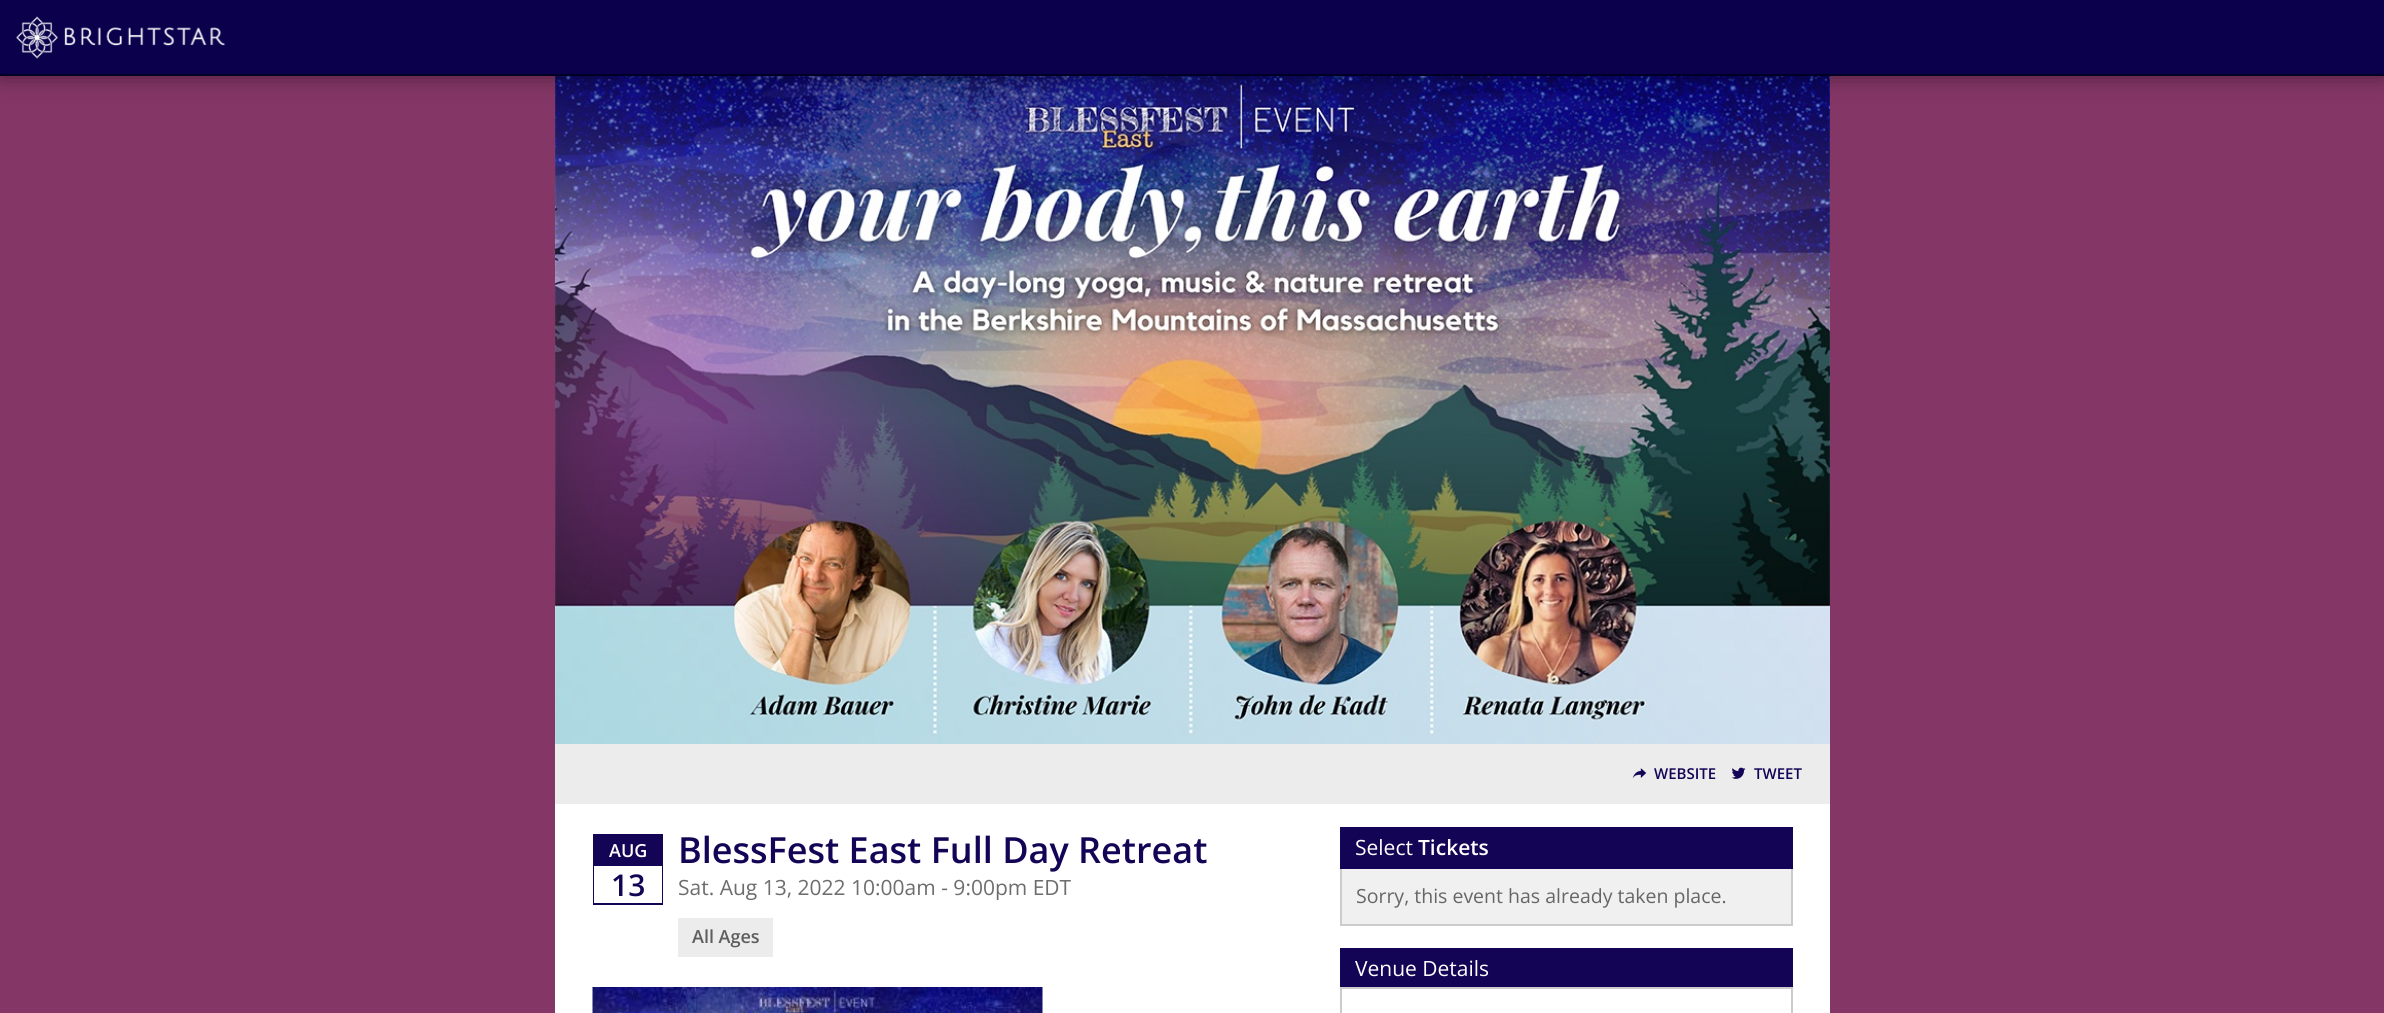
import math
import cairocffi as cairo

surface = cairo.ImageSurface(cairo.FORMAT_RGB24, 2384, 1013)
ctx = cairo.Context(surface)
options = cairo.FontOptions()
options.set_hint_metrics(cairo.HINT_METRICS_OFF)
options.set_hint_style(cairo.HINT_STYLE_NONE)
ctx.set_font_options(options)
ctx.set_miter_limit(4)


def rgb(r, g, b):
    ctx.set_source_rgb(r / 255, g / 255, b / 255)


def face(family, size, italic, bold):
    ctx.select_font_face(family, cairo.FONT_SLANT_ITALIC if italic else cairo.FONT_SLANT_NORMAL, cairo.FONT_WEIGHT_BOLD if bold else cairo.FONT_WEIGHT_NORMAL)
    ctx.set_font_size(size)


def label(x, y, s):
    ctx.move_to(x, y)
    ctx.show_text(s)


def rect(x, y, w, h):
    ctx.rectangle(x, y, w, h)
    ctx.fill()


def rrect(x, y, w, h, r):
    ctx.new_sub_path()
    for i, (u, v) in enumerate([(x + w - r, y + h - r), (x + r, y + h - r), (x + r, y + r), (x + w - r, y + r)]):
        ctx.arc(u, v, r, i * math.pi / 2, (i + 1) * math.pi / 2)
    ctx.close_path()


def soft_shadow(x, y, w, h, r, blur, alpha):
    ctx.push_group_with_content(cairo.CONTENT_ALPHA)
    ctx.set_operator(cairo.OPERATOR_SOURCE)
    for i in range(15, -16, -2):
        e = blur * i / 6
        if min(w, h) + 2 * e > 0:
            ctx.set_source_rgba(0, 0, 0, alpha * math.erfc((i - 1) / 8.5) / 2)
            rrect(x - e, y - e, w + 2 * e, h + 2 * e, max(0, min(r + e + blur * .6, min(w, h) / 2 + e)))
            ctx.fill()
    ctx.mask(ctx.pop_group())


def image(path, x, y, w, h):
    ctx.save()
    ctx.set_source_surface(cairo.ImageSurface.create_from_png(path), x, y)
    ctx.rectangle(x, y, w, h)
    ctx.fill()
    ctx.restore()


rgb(132, 54, 102)
ctx.paint()
image('image1.png', 555, 76, 1275, 668)
rgb(0, 0, 0)
soft_shadow(0, 2, 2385, 75, 0, 11, 0.4)
rgb(10, 0, 76)
rect(0, 0, 2384, 74)
rgb(0, 0, 36)
rect(0, 74, 2384, 2)
image('image0.png', 16, 16, 209, 43)
rgb(255, 255, 255)
rect(555, 804, 1275, 209)
rgb(236, 236, 236)
rect(555, 744, 1275, 60)
image('image2.png', 1632, 768, 15, 11)
face('Open Sans SemiBold', 15, 0, 0)
rgb(20, 4, 86)
label(1654, 779, 'WEBSITE')
image('image3.png', 1731, 767, 15, 12)
label(1754, 779, 'TWEET')
ctx.rectangle(594, 835, 68, 69)
ctx.stroke()
rect(595, 836, 66, 30)
face('Open Sans SemiBold', 18, 0, 0)
rgb(255, 255, 255)
label(609, 857, 'AUG')
rect(594, 866, 68, 37)
face('Open Sans SemiBold', 30, 0, 0)
rgb(20, 4, 86)
label(611, 896, '13')
face('Open Sans SemiBold', 36, 0, 0)
label(678, 863, 'BlessFest East Full Day Retreat')
face('Open Sans', 21, 0, 0)
rgb(109, 109, 109)
label(678, 895, 'Sat. Aug 13, 2022 10:00am - 9:00pm EDT')
rgb(236, 236, 236)
rect(678, 918, 95, 39)
face('Open Sans SemiBold', 18, 0, 0)
rgb(94, 94, 94)
label(692, 943, 'All Ages')
image('image4.png', 592, 987, 451, 26)
rgb(20, 4, 86)
rect(1340, 827, 453, 42)
face('Open Sans', 21, 0, 0)
rgb(255, 255, 255)
label(1355, 855, 'Select')
face('Open Sans SemiBold', 21, 0, 0)
label(1418, 855, 'Tickets')
rgb(240, 240, 240)
rect(1342, 869, 449, 55)
rgb(204, 204, 204)
rect(1791, 869, 2, 57)
rect(1340, 924, 453, 2)
rect(1340, 869, 2, 57)
face('Open Sans', 19.5, 0, 0)
rgb(102, 102, 102)
label(1356, 903, 'Sorry, this event has already taken place.')
rgb(20, 4, 86)
rect(1340, 948, 453, 39)
face('Open Sans', 21, 0, 0)
rgb(255, 255, 255)
label(1355, 976, 'Venue Details')
ctx.rectangle(1341, 988, 451, 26)
rgb(204, 204, 204)
ctx.stroke()
surface.write_to_png('render.png')
